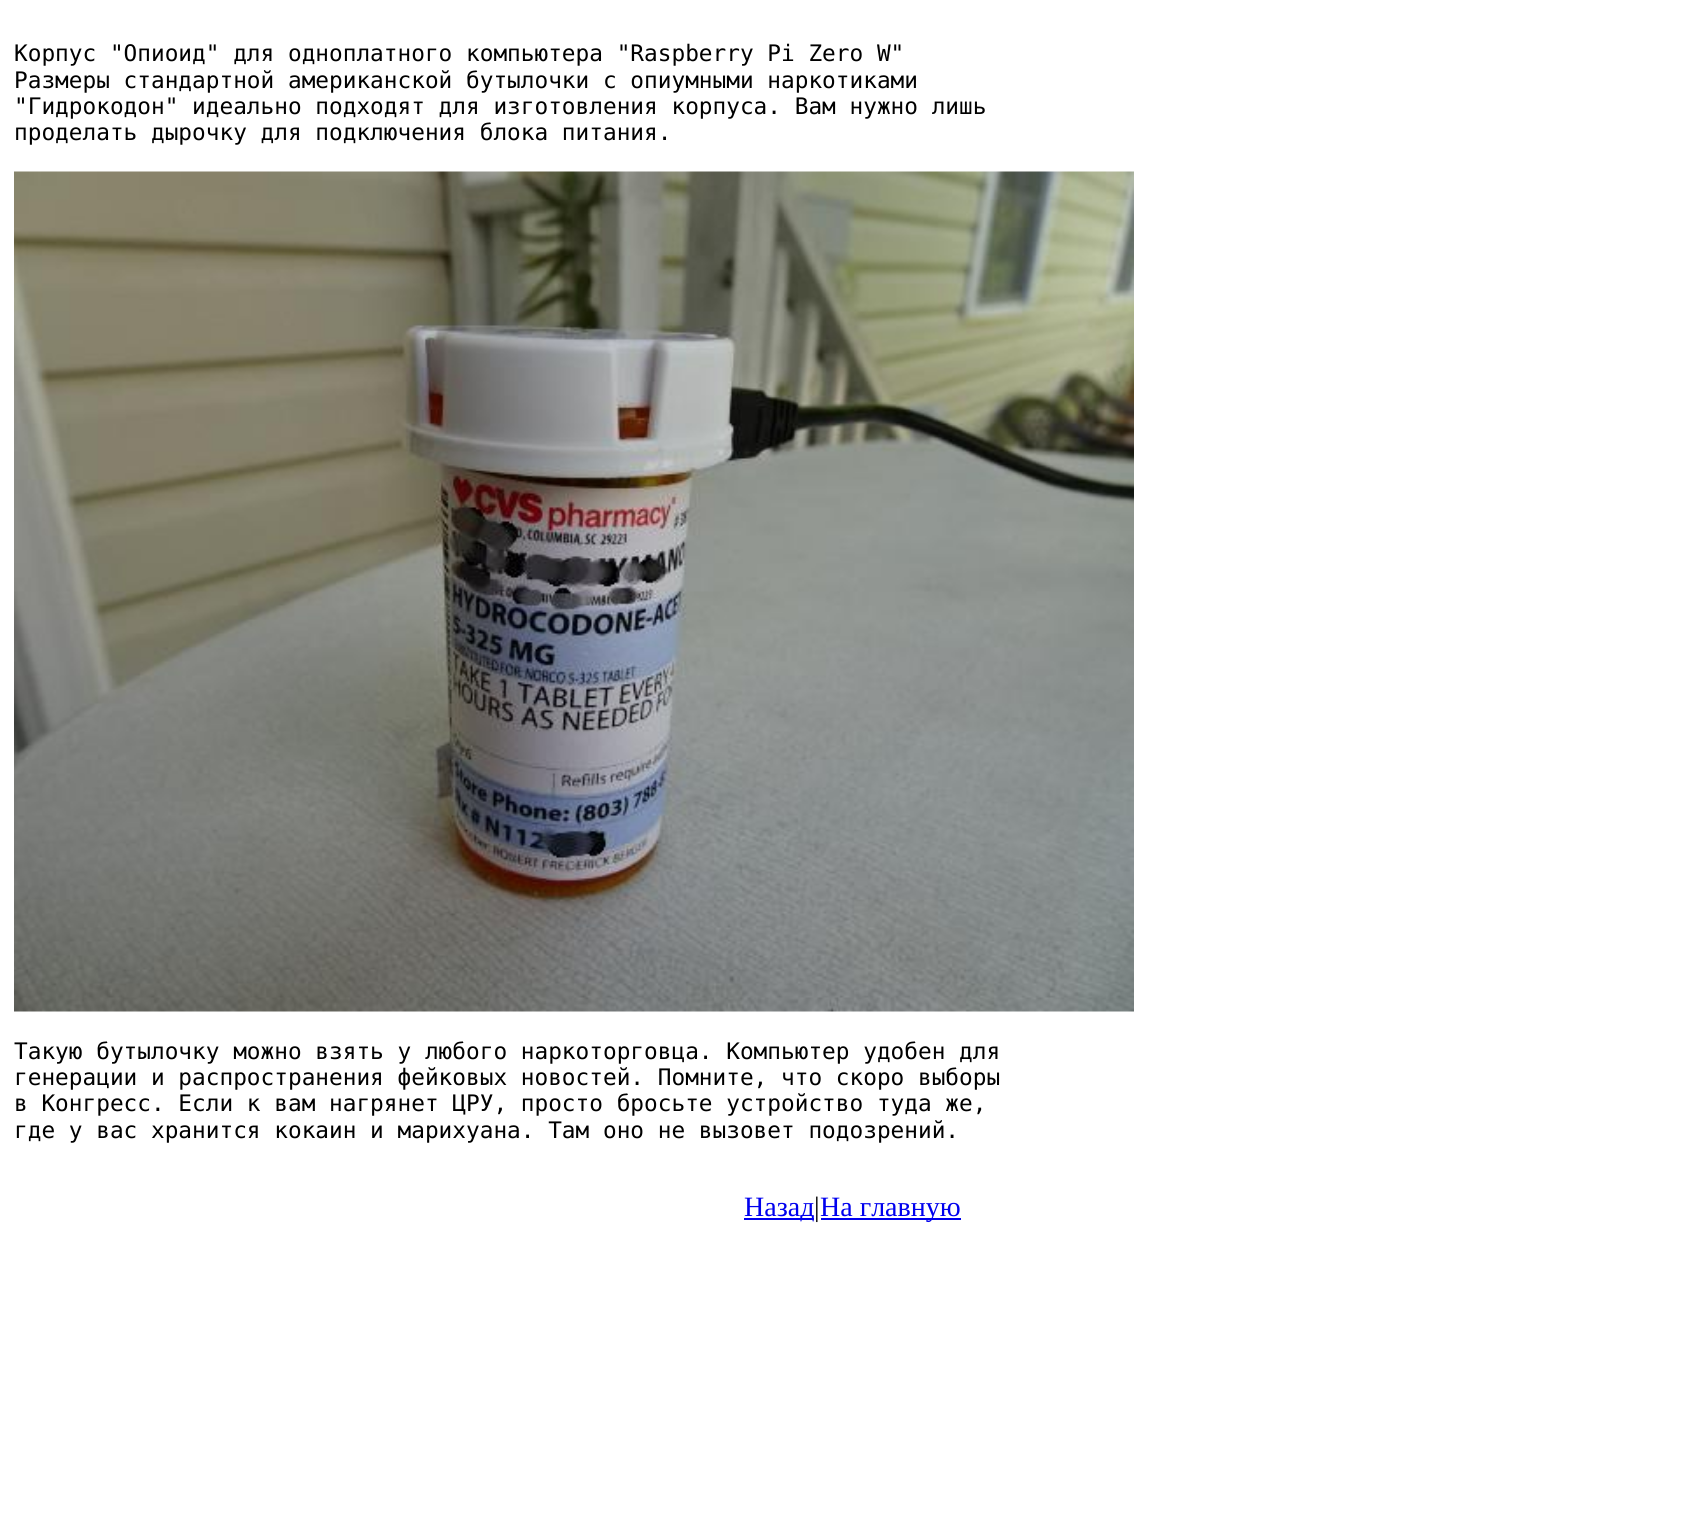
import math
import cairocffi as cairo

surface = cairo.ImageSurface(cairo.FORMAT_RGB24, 1704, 1513)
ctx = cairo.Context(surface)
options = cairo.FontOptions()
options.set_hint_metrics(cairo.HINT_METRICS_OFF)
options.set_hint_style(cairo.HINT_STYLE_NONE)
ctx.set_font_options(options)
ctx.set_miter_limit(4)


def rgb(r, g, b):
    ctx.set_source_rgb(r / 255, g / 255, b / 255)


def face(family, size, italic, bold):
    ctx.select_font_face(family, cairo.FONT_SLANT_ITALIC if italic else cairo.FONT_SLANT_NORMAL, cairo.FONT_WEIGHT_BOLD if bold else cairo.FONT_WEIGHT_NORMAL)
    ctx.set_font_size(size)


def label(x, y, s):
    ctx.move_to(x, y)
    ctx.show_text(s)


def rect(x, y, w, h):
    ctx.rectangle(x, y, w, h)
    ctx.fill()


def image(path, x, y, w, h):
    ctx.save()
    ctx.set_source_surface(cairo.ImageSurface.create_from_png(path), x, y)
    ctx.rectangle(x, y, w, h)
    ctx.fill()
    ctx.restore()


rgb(255, 255, 255)
ctx.paint()
face('DejaVu Sans Mono', 22.75, 0, 0)
rgb(0, 0, 0)
label(14, 61, 'Корпус "Опиоид" для одноплатного компьютера "Raspberry Pi Zero W"')
label(14, 88, 'Размеры стандартной американской бутылочки с опиумными наркотиками')
label(14, 114, '"Гидрокодон" идеально подходят для изготовления корпуса. Вам нужно лишь')
label(14, 140, 'проделать дырочку для подключения блока питания.')
image('image0.png', 14, 171, 1120, 841)
label(14, 1059, 'Такую бутылочку можно взять у любого наркоторговца. Компьютер удобен для')
label(14, 1085, 'генерации и распространения фейковых новостей. Помните, что скоро выборы')
label(14, 1111, 'в Конгресс. Если к вам нагрянет ЦРУ, просто бросьте устройство туда же,')
label(14, 1138, 'где у вас хранится кокаин и марихуана. Там оно не вызовет подозрений.')
rgb(0, 0, 238)
rect(744, 1218, 70, 2)
face('Liberation Serif', 28, 0, 0)
label(744, 1216, 'Назад')
rgb(0, 0, 0)
label(814, 1216, '|')
rgb(0, 0, 238)
rect(821, 1218, 140, 2)
label(820, 1216, 'На главную')
surface.write_to_png('render.png')
